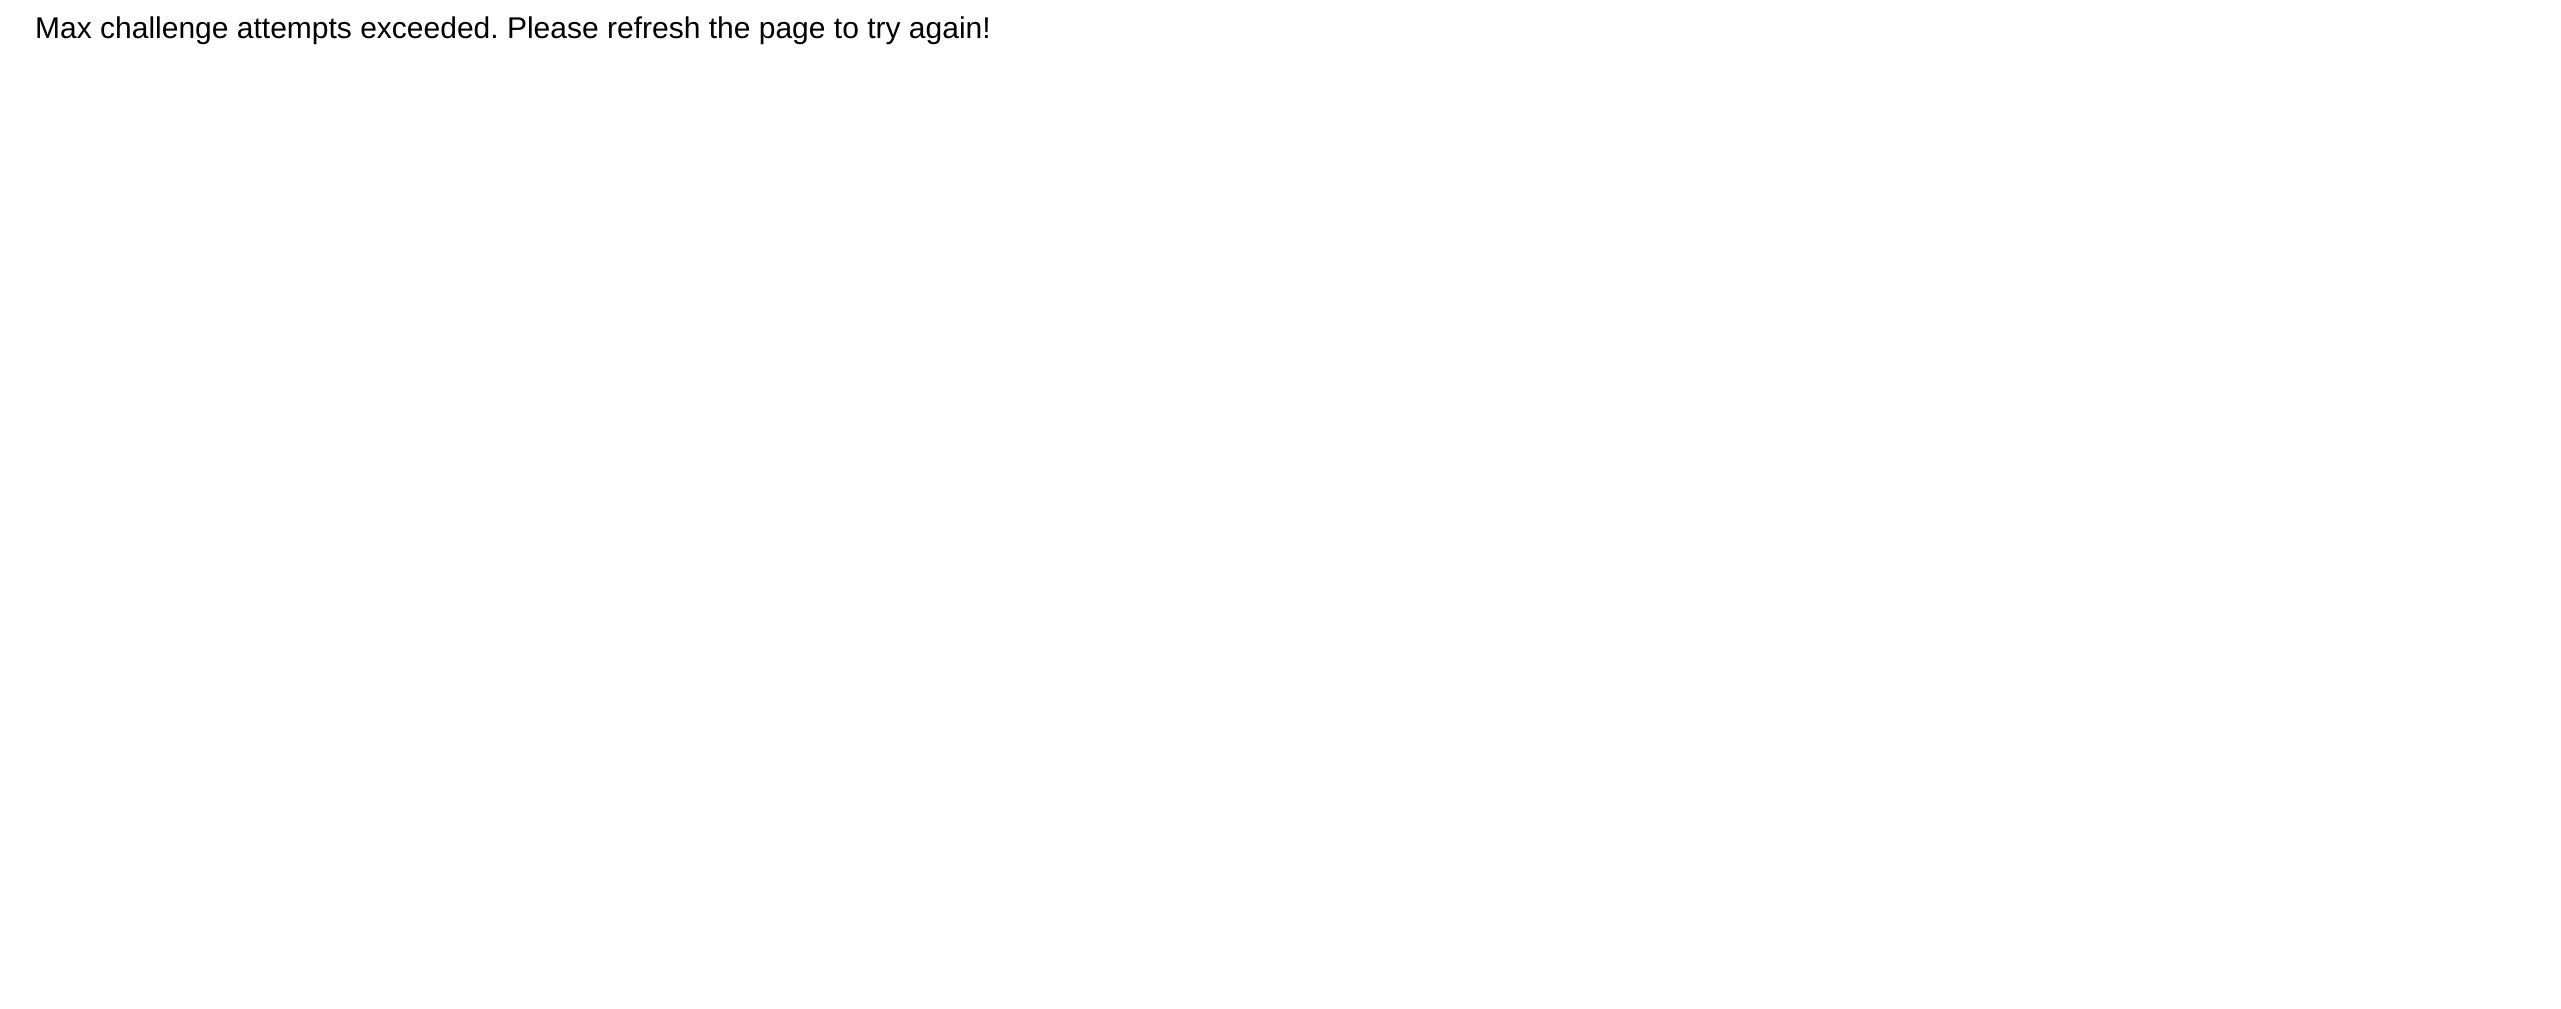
import math
import cairocffi as cairo

surface = cairo.ImageSurface(cairo.FORMAT_RGB24, 2561, 1009)
ctx = cairo.Context(surface)
options = cairo.FontOptions()
options.set_hint_metrics(cairo.HINT_METRICS_OFF)
options.set_hint_style(cairo.HINT_STYLE_NONE)
ctx.set_font_options(options)
ctx.set_miter_limit(4)


def rgb(r, g, b):
    ctx.set_source_rgb(r / 255, g / 255, b / 255)


def face(family, size, italic, bold):
    ctx.select_font_face(family, cairo.FONT_SLANT_ITALIC if italic else cairo.FONT_SLANT_NORMAL, cairo.FONT_WEIGHT_BOLD if bold else cairo.FONT_WEIGHT_NORMAL)
    ctx.set_font_size(size)


def label(x, y, s):
    ctx.move_to(x, y)
    ctx.show_text(s)


rgb(255, 255, 255)
ctx.paint()
face('Liberation Sans', 30, 0, 0)
rgb(0, 0, 0)
label(35, 38, 'Max challenge attempts exceeded. Please refresh the page to try again!')
surface.write_to_png('render.png')
